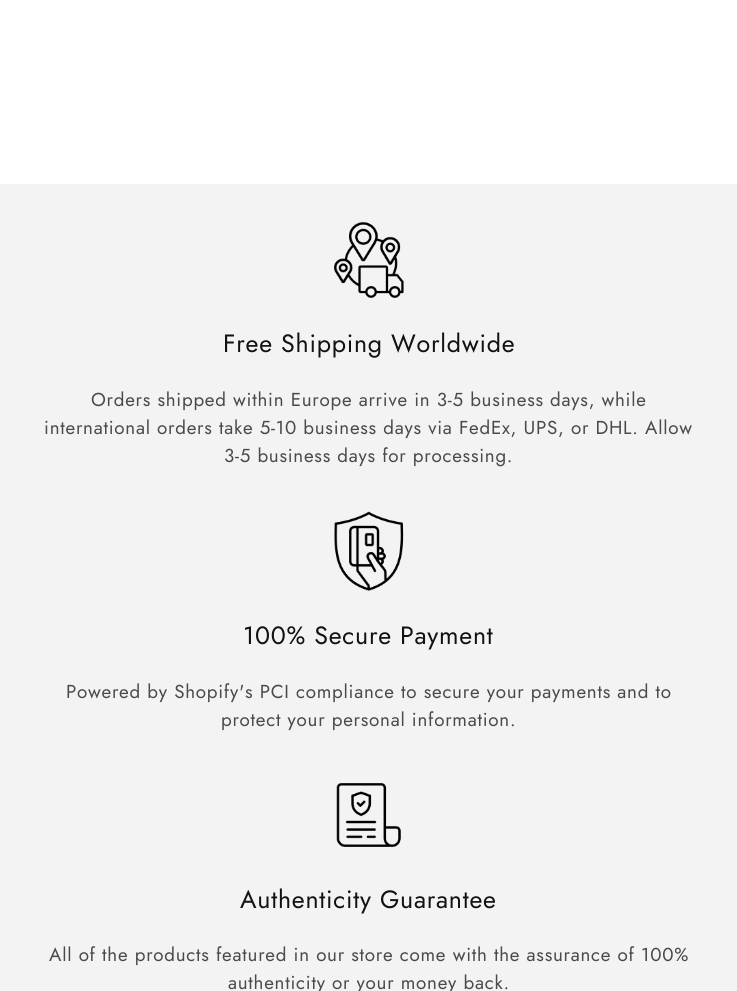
import math
import cairocffi as cairo

surface = cairo.ImageSurface(cairo.FORMAT_RGB24, 737, 991)
ctx = cairo.Context(surface)
options = cairo.FontOptions()
options.set_hint_metrics(cairo.HINT_METRICS_OFF)
options.set_hint_style(cairo.HINT_STYLE_NONE)
ctx.set_font_options(options)
ctx.set_miter_limit(4)


def rgb(r, g, b):
    ctx.set_source_rgb(r / 255, g / 255, b / 255)


def face(family, size, italic, bold):
    ctx.select_font_face(family, cairo.FONT_SLANT_ITALIC if italic else cairo.FONT_SLANT_NORMAL, cairo.FONT_WEIGHT_BOLD if bold else cairo.FONT_WEIGHT_NORMAL)
    ctx.set_font_size(size)


def tracked(x, y, s, letter, word):
    ctx.move_to(x, y)
    for ch in s:
        ctx.show_text(ch)
        ctx.rel_move_to(letter + word * (ch == ' '), 0)


def rect(x, y, w, h):
    ctx.rectangle(x, y, w, h)
    ctx.fill()


def image(path, x, y, w, h):
    ctx.save()
    ctx.set_source_surface(cairo.ImageSurface.create_from_png(path), x, y)
    ctx.rectangle(x, y, w, h)
    ctx.fill()
    ctx.restore()


rgb(255, 255, 255)
ctx.paint()
rgb(243, 243, 243)
rect(0, 184, 737, 807)
image('image0.png', 334, 221, 70, 78)
face('Jost', 25, 0, 0)
rgb(18, 18, 18)
tracked(223, 352, 'Free Shipping Worldwide', 0.75, 0)
face('Jost', 18.75, 0, 0)
rgb(74, 74, 74)
tracked(91, 406, 'Orders shipped within Europe arrive in 3-5 business days, while', 0.75, 0)
tracked(44, 434, 'international orders take 5-10 business days via FedEx, UPS, or DHL. Allow', 0.75, 0)
tracked(224, 462, '3-5 business days for processing.', 0.75, 0)
image('image1.png', 334, 511, 70, 80)
face('Jost', 25, 0, 0)
rgb(18, 18, 18)
tracked(243, 644, '100% Secure Payment', 0.75, 0)
face('Jost', 18.75, 0, 0)
rgb(74, 74, 74)
tracked(66, 698, 'Powered by Shopify\'s PCI compliance to secure your payments and to', 0.75, 0)
tracked(221, 726, 'protect your personal information.', 0.75, 0)
image('image2.png', 336, 783, 65, 64)
face('Jost', 25, 0, 0)
rgb(18, 18, 18)
tracked(240, 908, 'Authenticity Guarantee', 0.75, 0)
face('Jost', 18.75, 0, 0)
rgb(74, 74, 74)
tracked(49, 961, 'All of the products featured in our store come with the assurance of 100%', 0.75, 0)
tracked(228, 989, 'authenticity or your money back.', 0.75, 0)
surface.write_to_png('render.png')
